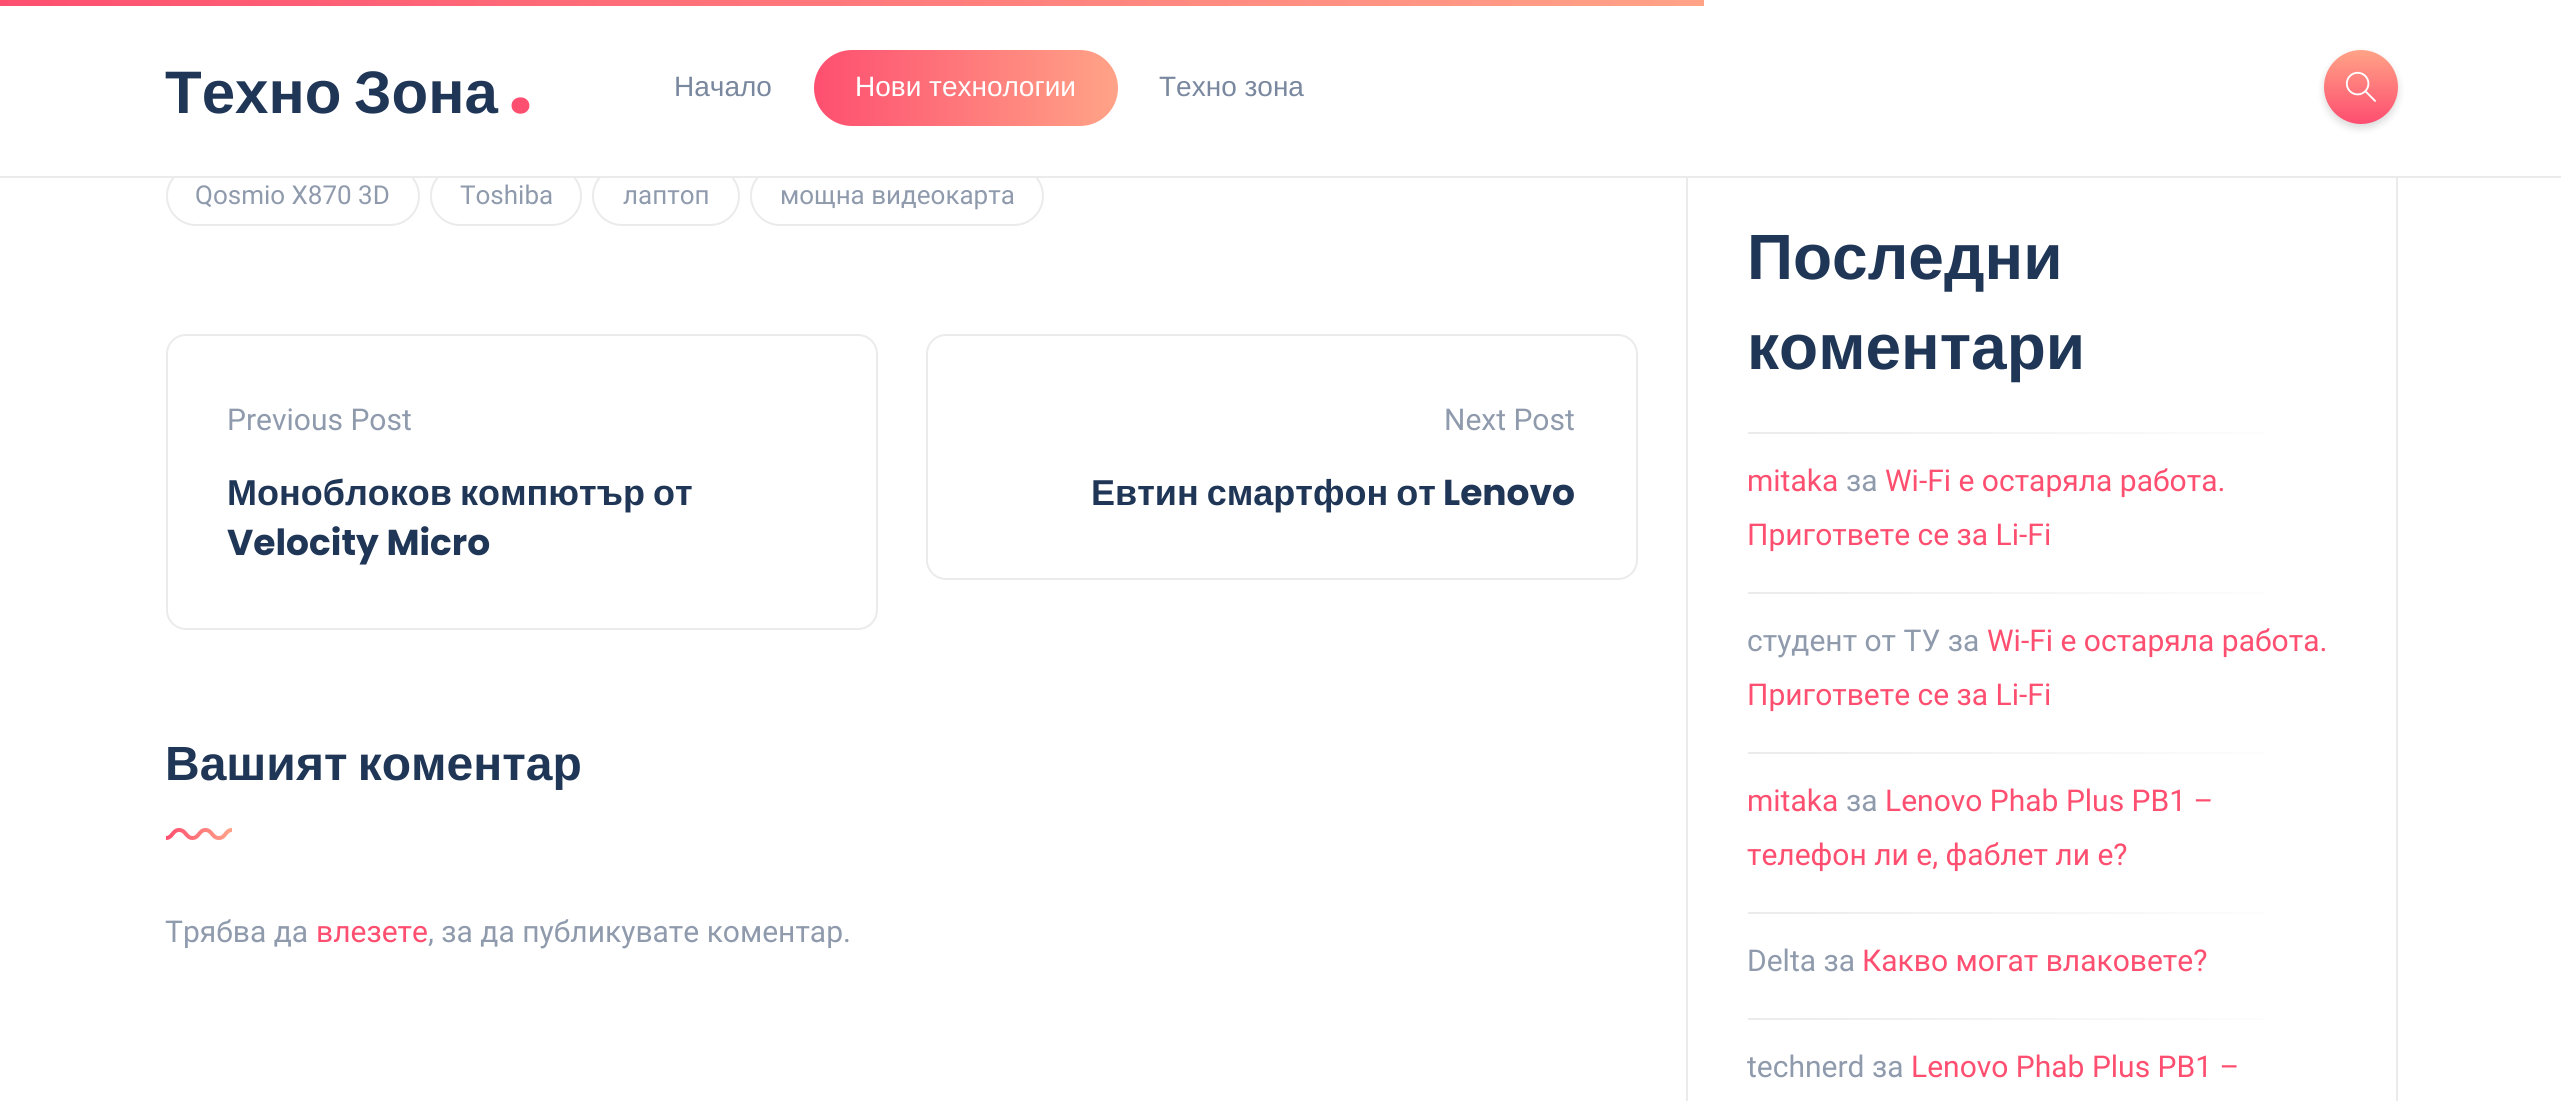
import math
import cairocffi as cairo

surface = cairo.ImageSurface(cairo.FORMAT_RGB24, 2561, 1101)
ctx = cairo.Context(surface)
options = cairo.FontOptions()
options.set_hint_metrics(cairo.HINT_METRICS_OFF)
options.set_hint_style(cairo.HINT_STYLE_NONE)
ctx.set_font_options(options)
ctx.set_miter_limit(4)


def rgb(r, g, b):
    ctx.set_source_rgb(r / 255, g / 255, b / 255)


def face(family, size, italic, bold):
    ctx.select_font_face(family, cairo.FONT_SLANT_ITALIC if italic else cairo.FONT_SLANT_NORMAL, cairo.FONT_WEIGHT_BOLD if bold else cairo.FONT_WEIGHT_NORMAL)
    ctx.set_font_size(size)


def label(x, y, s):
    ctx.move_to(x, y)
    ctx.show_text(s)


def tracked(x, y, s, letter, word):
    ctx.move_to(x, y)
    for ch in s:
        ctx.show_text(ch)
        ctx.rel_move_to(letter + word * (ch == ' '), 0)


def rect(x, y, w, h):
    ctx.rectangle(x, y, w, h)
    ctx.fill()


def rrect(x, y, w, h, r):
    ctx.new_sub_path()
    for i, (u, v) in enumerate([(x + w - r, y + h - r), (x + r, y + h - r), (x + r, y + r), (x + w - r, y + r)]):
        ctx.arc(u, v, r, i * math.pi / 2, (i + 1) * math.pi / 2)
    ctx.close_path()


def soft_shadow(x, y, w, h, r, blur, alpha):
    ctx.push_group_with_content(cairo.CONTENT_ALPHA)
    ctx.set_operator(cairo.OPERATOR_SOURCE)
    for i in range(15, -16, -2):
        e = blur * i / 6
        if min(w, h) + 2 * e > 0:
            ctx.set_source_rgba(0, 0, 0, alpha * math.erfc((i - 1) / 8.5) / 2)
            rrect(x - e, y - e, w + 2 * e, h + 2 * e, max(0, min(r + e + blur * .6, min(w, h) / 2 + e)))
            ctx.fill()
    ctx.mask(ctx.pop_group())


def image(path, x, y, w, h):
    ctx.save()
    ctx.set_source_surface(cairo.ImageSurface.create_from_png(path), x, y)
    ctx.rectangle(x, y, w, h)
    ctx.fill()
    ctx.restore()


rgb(255, 255, 255)
ctx.paint()
gradient = cairo.LinearGradient(0, 3, 1704, 3)
gradient.add_color_stop_rgba(0, 0.996, 0.31, 0.439, 1)
gradient.add_color_stop_rgba(1, 1, 0.639, 0.529, 1)
ctx.set_source(gradient)
rect(0, 0, 1704, 6)
rrect(167, 167, 252, 58, 29)
rgb(235, 235, 235)
ctx.stroke()
rrect(431, 167, 150, 58, 29)
ctx.stroke()
rrect(593, 167, 146, 58, 29)
ctx.stroke()
rrect(751, 167, 292, 58, 29)
ctx.stroke()
ctx.rectangle(1687, 103, 710, 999)
ctx.stroke()
rgb(255, 255, 255)
rect(174, 102, 2224, 74)
rgb(235, 235, 235)
rect(0, 176, 2561, 2)
face('Liberation Sans', 60, 0, 1)
rgb(32, 54, 86)
tracked(165, 113, 'Техно Зона', 0, -4)
face('Poppins', 88, 0, 1)
rgb(254, 79, 112)
label(508, 113, '.')
face('Liberation Sans', 28, 0, 0)
rgb(121, 136, 158)
label(674, 96, 'Начало')
gradient = cairo.LinearGradient(814, 88, 1118, 88)
gradient.add_color_stop_rgba(0, 0.996, 0.31, 0.439, 1)
gradient.add_color_stop_rgba(1, 1, 0.639, 0.529, 1)
ctx.set_source(gradient)
rrect(814, 50, 304, 76, 38)
ctx.fill()
rgb(255, 255, 255)
label(855, 96, 'Нови технологии')
rgb(121, 136, 158)
label(1159, 96, 'Техно зона')
rgb(0, 0, 0)
soft_shadow(2324, 54, 74, 74, 37, 4, 0.15)
gradient = cairo.LinearGradient(2361, 198, 2361, 50)
gradient.add_color_stop_rgba(0, 1, 0.639, 0.529, 1)
gradient.add_color_stop_rgba(0.51, 0.996, 0.31, 0.439, 1)
gradient.add_color_stop_rgba(1, 1, 0.639, 0.529, 1)
ctx.set_source(gradient)
ctx.arc(2361, 87, 37, 0, 2 * math.pi)
ctx.fill()
image('image0.png', 2345, 71, 31, 31)
face('Roboto', 26, 0, 0)
rgb(143, 155, 173)
label(195, 204, 'Qosmio X870 3D')
label(460, 204, 'Toshiba')
label(623, 204, 'лаптоп')
label(780, 204, 'мощна видеокарта')
rrect(167, 335, 710, 294, 19)
rgb(235, 235, 235)
ctx.stroke()
face('Roboto', 30, 0, 0)
rgb(143, 155, 173)
label(227, 430, 'Previous Post')
face('Liberation Sans', 36, 0, 1)
rgb(32, 54, 86)
tracked(227, 505, 'Моноблоков компютър от', 0, -2)
face('Poppins', 36, 0, 1)
label(227, 555, 'Velocity Micro')
rrect(927, 335, 710, 244, 19)
rgb(235, 235, 235)
ctx.stroke()
face('Roboto', 30, 0, 0)
rgb(143, 155, 173)
label(1444, 430, 'Next Post')
face('Liberation Sans', 36, 0, 1)
rgb(32, 54, 86)
tracked(1091, 505, 'Евтин смартфон от', 0, -2)
face('Poppins', 36, 0, 1)
label(1443, 505, 'Lenovo')
face('Liberation Sans', 48, 0, 1)
tracked(165, 780, 'Вашият коментар', 0, -3)
ctx.new_path()
ctx.move_to(232, 830)
ctx.curve_to(225.5, 830, 225.5, 838, 219, 838)
ctx.curve_to(212, 838, 212, 830, 205.5, 830)
ctx.curve_to(199, 830, 199, 838, 192.5, 838)
ctx.curve_to(186, 838, 186, 830, 179, 830)
ctx.curve_to(172.5, 830, 172.5, 838, 166, 838)
gradient = cairo.LinearGradient(166, 830, 232, 830)
gradient.add_color_stop_rgba(0, 0.996, 0.31, 0.439, 1)
gradient.add_color_stop_rgba(1, 1, 0.639, 0.529, 1)
ctx.set_source(gradient)
ctx.set_line_width(4)
ctx.stroke()
face('Roboto', 30, 0, 0)
rgb(143, 155, 173)
label(165, 942, 'Трябва да')
rgb(254, 79, 112)
label(316, 942, 'влезете')
rgb(143, 155, 173)
label(428, 942, ', за да публикувате коментар.')
face('Liberation Sans', 64, 0, 1)
rgb(32, 54, 86)
label(1747, 279, 'Последни')
label(1747, 369, 'коментари')
gradient = cairo.LinearGradient(1748, 433, 2336, 433)
gradient.add_color_stop_rgba(0, 0.922, 0.922, 0.922, 1)
gradient.add_color_stop_rgba(1, 1, 1, 1, 1)
ctx.set_source(gradient)
rect(1748, 432, 515, 2)
face('Roboto', 30, 0, 0)
rgb(254, 79, 112)
label(1747, 491, 'mitaka')
rgb(143, 155, 173)
label(1846, 491, 'за')
rgb(254, 79, 112)
label(1885, 491, 'Wi-Fi е остаряла работа.')
label(1747, 545, 'Пригответе се за Li-Fi')
gradient = cairo.LinearGradient(1748, 593, 2336, 593)
gradient.add_color_stop_rgba(0, 0.922, 0.922, 0.922, 1)
gradient.add_color_stop_rgba(1, 1, 1, 1, 1)
ctx.set_source(gradient)
rect(1748, 592, 515, 2)
rgb(143, 155, 173)
label(1747, 651, 'студент от ТУ за')
rgb(254, 79, 112)
label(1987, 651, 'Wi-Fi е остаряла работа.')
label(1747, 705, 'Пригответе се за Li-Fi')
gradient = cairo.LinearGradient(1748, 753, 2336, 753)
gradient.add_color_stop_rgba(0, 0.922, 0.922, 0.922, 1)
gradient.add_color_stop_rgba(1, 1, 1, 1, 1)
ctx.set_source(gradient)
rect(1748, 752, 515, 2)
rgb(254, 79, 112)
label(1747, 811, 'mitaka')
rgb(143, 155, 173)
label(1846, 811, 'за')
rgb(254, 79, 112)
label(1885, 811, 'Lenovo Phab Plus PB1 –')
label(1747, 865, 'телефон ли е, фаблет ли е?')
gradient = cairo.LinearGradient(1748, 913, 2336, 913)
gradient.add_color_stop_rgba(0, 0.922, 0.922, 0.922, 1)
gradient.add_color_stop_rgba(1, 1, 1, 1, 1)
ctx.set_source(gradient)
rect(1748, 912, 515, 2)
rgb(143, 155, 173)
label(1747, 971, 'Delta за')
rgb(254, 79, 112)
label(1862, 971, 'Какво могат влаковете?')
gradient = cairo.LinearGradient(1748, 1019, 2336, 1019)
gradient.add_color_stop_rgba(0, 0.922, 0.922, 0.922, 1)
gradient.add_color_stop_rgba(1, 1, 1, 1, 1)
ctx.set_source(gradient)
rect(1748, 1018, 515, 2)
rgb(143, 155, 173)
label(1747, 1077, 'technerd за')
rgb(254, 79, 112)
label(1911, 1077, 'Lenovo Phab Plus PB1 –')
surface.write_to_png('render.png')
